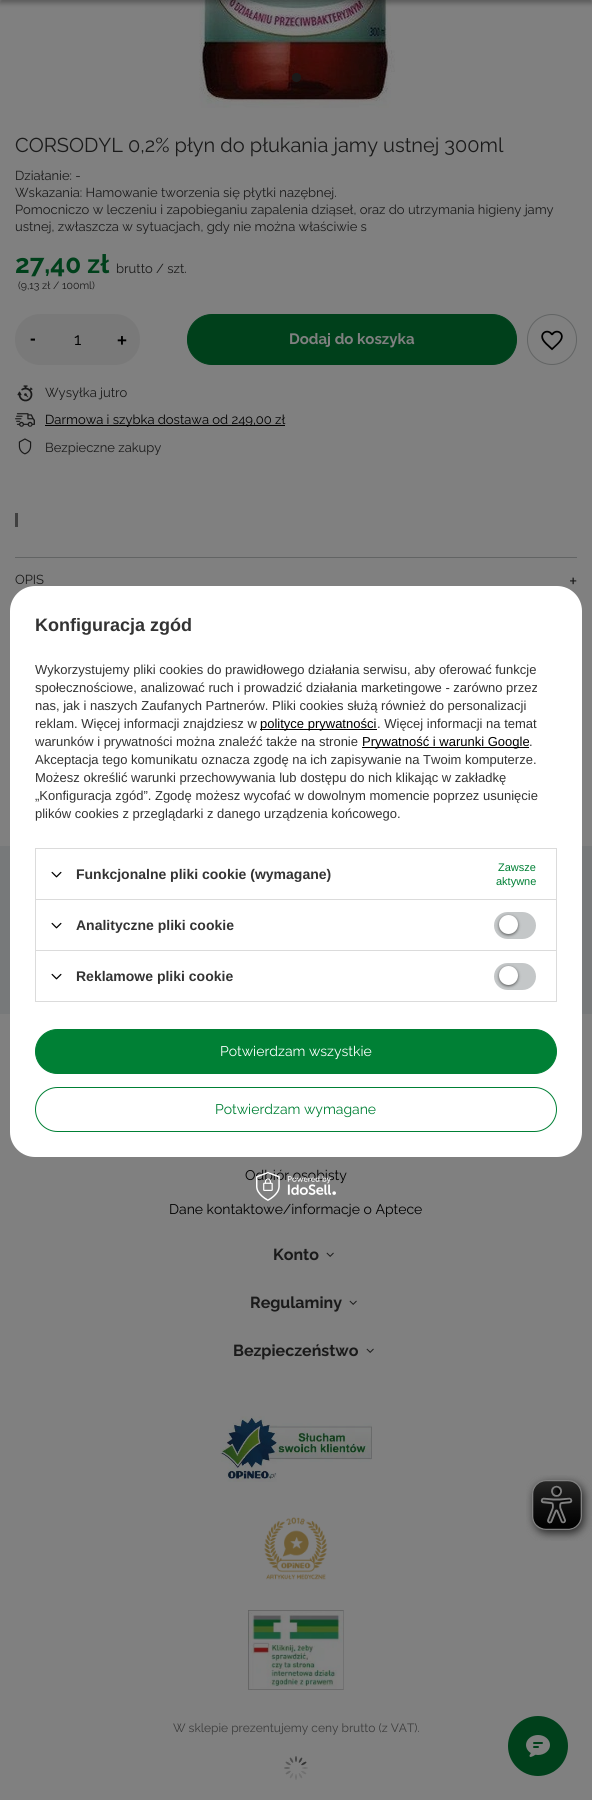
import math
import cairocffi as cairo

surface = cairo.ImageSurface(cairo.FORMAT_RGB24, 592, 1800)
ctx = cairo.Context(surface)
options = cairo.FontOptions()
options.set_hint_metrics(cairo.HINT_METRICS_OFF)
options.set_hint_style(cairo.HINT_STYLE_NONE)
ctx.set_font_options(options)
ctx.set_miter_limit(4)


def rgb(r, g, b):
    ctx.set_source_rgb(r / 255, g / 255, b / 255)


def face(family, size, italic, bold):
    ctx.select_font_face(family, cairo.FONT_SLANT_ITALIC if italic else cairo.FONT_SLANT_NORMAL, cairo.FONT_WEIGHT_BOLD if bold else cairo.FONT_WEIGHT_NORMAL)
    ctx.set_font_size(size)


def label(x, y, s):
    ctx.move_to(x, y)
    ctx.show_text(s)


def rect(x, y, w, h):
    ctx.rectangle(x, y, w, h)
    ctx.fill()


def rrect(x, y, w, h, r):
    ctx.new_sub_path()
    for i, (u, v) in enumerate([(x + w - r, y + h - r), (x + r, y + h - r), (x + r, y + r), (x + w - r, y + r)]):
        ctx.arc(u, v, r, i * math.pi / 2, (i + 1) * math.pi / 2)
    ctx.close_path()


def soft_shadow(x, y, w, h, r, blur, alpha):
    ctx.push_group_with_content(cairo.CONTENT_ALPHA)
    ctx.set_operator(cairo.OPERATOR_SOURCE)
    for i in range(15, -16, -2):
        e = blur * i / 6
        if min(w, h) + 2 * e > 0:
            ctx.set_source_rgba(0, 0, 0, alpha * math.erfc((i - 1) / 8.5) / 2)
            rrect(x - e, y - e, w + 2 * e, h + 2 * e, max(0, min(r + e + blur * .6, min(w, h) / 2 + e)))
            ctx.fill()
    ctx.mask(ctx.pop_group())


def image(path, x, y, w, h):
    ctx.save()
    ctx.set_source_surface(cairo.ImageSurface.create_from_png(path), x, y)
    ctx.rectangle(x, y, w, h)
    ctx.fill()
    ctx.restore()


rgb(128, 128, 128)
ctx.paint()
image('image0.png', 199, 0, 196, 108)
rgb(0, 0, 0)
soft_shadow(0, -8, 592, 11, 0, 2.5, 0.3)
rgb(26, 26, 26)
ctx.arc(296.5, 77.5, 4, 0, 2 * math.pi)
ctx.fill_preserve()
ctx.set_line_width(1)
ctx.stroke()
face('Raleway', 20, 0, 0)
label(15, 152, 'CORSODYL 0,2% płyn do płukania jamy ustnej 300ml')
face('Raleway', 13, 0, 0)
label(15, 180, 'Działanie: -')
label(15, 197, 'Wskazania: Hamowanie tworzenia się płytki nazębnej.')
label(15, 214, 'Pomocniczo w leczeniu i zapobieganiu zapalenia dziąseł, oraz do utrzymania higieny jamy')
label(15, 231, 'ustnej, zwłaszcza w sytuacjach, gdy nie można właściwie s')
face('Raleway', 26, 0, 1)
rgb(0, 64, 27)
label(15, 273, '27,40 zł')
face('Raleway', 13, 0, 0)
rgb(26, 26, 26)
label(116, 273, 'brutto / szt.')
face('Raleway', 10.5, 0, 0)
label(18, 289, '(9,13 zł / 100ml)')
rgb(121, 121, 121)
rrect(15, 314, 125, 51, 25)
ctx.fill()
face('Liberation Sans', 17, 0, 1)
rgb(0, 0, 0)
label(30, 344, '-')
face('Raleway', 17, 0, 0)
label(74, 345, '1')
face('Liberation Sans', 17, 0, 1)
label(117, 346, '+')
rgb(0, 64, 27)
rrect(187.5, 314.5, 329, 50, 24.5)
ctx.fill_preserve()
ctx.stroke()
face('Raleway', 15, 0, 1)
rgb(128, 128, 128)
label(289, 344, 'Dodaj do koszyka')
rrect(527.5, 314.5, 49, 50, 24.5)
rgb(98, 100, 100)
ctx.stroke()
image('image1.png', 541, 330, 22, 21)
image('image2.png', 17, 385, 16, 17)
face('Raleway', 13, 0, 0)
rgb(26, 26, 26)
label(45, 397, 'Wysyłka jutro')
image('image3.png', 15, 413, 20, 14)
rgb(0, 0, 0)
rect(45, 425, 240, 1)
label(45, 424, 'Darmowa i szybka dostawa od 249,00 zł')
image('image4.png', 18, 438, 14, 17)
rgb(26, 26, 26)
label(45, 452, 'Bezpieczne zakupy')
rgb(64, 64, 64)
rect(15, 513, 3, 14)
rgb(98, 100, 100)
rect(15, 557, 562, 1)
rgb(26, 26, 26)
label(15, 584, 'OPIS')
face('Raleway', 20, 0, 0)
label(569, 588, '+')
rgb(119, 121, 122)
rect(0, 846, 592, 168)
rgb(255, 255, 255)
rrect(10, 586, 572, 571, 25)
ctx.fill()
face('Liberation Sans', 18, 0, 1)
rgb(51, 51, 51)
label(35, 631, 'Konfiguracja zgód')
face('Liberation Sans', 13, 0, 0)
label(35, 674, 'Wykorzystujemy pliki cookies do prawidłowego działania serwisu, aby oferować funkcje')
label(35, 692, 'społecznościowe, analizować ruch i prowadzić działania marketingowe - zarówno przez')
label(35, 710, 'nas, jak i naszych Zaufanych Partnerów. Pliki cookies służą również do personalizacji')
label(35, 728, 'reklam. Więcej informacji znajdziesz w')
rgb(0, 0, 0)
rect(260, 729, 117, 1)
label(260, 728, 'polityce prywatności')
rgb(51, 51, 51)
label(377, 728, '. Więcej informacji na temat')
label(35, 746, 'warunków i prywatności można znaleźć także na stronie')
rgb(0, 0, 0)
rect(362, 747, 167, 1)
label(362, 746, 'Prywatność i warunki Google')
rgb(51, 51, 51)
label(529, 746, '.')
label(35, 764, 'Akceptacja tego komunikatu oznacza zgodę na ich zapisywanie na Twoim komputerze.')
label(35, 782, 'Możesz określić warunki przechowywania lub dostępu do nich klikając w zakładkę')
label(35, 800, '„Konfiguracja zgód”. Zgodę możesz wycofać w dowolnym momencie poprzez usunięcie')
label(35, 818, 'plików cookies z przeglądarki z danego urządzenia końcowego.')
rgb(219, 219, 219)
rect(35, 848, 522, 1)
rect(556, 848, 1, 51)
rect(35, 848, 1, 51)
image('image5.png', 51, 871, 11, 7)
face('Liberation Sans', 14, 0, 1)
rgb(51, 51, 51)
label(76, 879, 'Funkcjonalne pliki cookie (wymagane)')
face('Liberation Sans', 11, 0, 0)
rgb(0, 128, 53)
label(498, 871, 'Zawsze')
label(496, 885, 'aktywne')
rgb(219, 219, 219)
rect(35, 899, 522, 1)
rect(556, 899, 1, 51)
rect(35, 899, 1, 51)
image('image5.png', 51, 922, 11, 7)
face('Liberation Sans', 14, 0, 1)
rgb(51, 51, 51)
label(76, 930, 'Analityczne pliki cookie')
rgb(196, 199, 200)
rrect(494, 912, 42, 27, 13.5)
ctx.fill()
rgb(0, 0, 0)
soft_shadow(499, 916, 19, 19, 9.5, 1.5, 0.56)
rgb(255, 255, 255)
ctx.arc(508.5, 924.5, 9.5, 0, 2 * math.pi)
ctx.fill()
ctx.rectangle(35.5, 950.5, 521, 51)
rgb(219, 219, 219)
ctx.stroke()
image('image5.png', 51, 973, 11, 7)
rgb(51, 51, 51)
label(76, 981, 'Reklamowe pliki cookie')
rgb(196, 199, 200)
rrect(494, 963, 42, 27, 13.5)
ctx.fill()
rgb(0, 0, 0)
soft_shadow(499, 967, 19, 19, 9.5, 1.5, 0.56)
rgb(255, 255, 255)
ctx.arc(508.5, 975.5, 9.5, 0, 2 * math.pi)
ctx.fill()
rgb(0, 128, 53)
rrect(35.5, 1029.5, 521, 44, 22)
ctx.fill_preserve()
ctx.stroke()
face('Raleway', 14, 0, 0)
rgb(255, 255, 255)
label(220, 1056, 'Potwierdzam wszystkie')
rrect(35.5, 1087.5, 521, 44, 22)
rgb(0, 128, 53)
ctx.stroke()
label(215, 1114, 'Potwierdzam wymagane')
rgb(0, 0, 0)
label(245, 1180, 'Odbiór osobisty')
image('image6.png', 256, 1172, 80, 29)
label(169, 1214, 'Dane kontaktowe/informacje o Aptece')
face('Raleway', 16, 0, 1)
rgb(26, 26, 26)
label(273, 1260, 'Konto')
image('image7.png', 326, 1252, 8, 5)
label(250, 1308, 'Regulaminy')
image('image7.png', 349, 1300, 8, 5)
label(233, 1356, 'Bezpieczeństwo')
image('image7.png', 366, 1348, 8, 5)
image('image8.png', 220, 1416, 152, 66)
image('image9.png', 264, 1517, 64, 63)
image('image10.png', 248, 1610, 96, 80)
face('Raleway', 12, 0, 0)
rgb(59, 59, 59)
label(173, 1732, 'W sklepie prezentujemy ceny brutto (z VAT).')
image('image11.png', 284, 1756, 24, 24)
image('image12.png', 526, 1475, 66, 66)
rgb(0, 64, 27)
ctx.arc(538, 1746, 30, 0, 2 * math.pi)
ctx.fill()
image('image13.png', 526, 1735, 24, 22)
surface.write_to_png('render.png')
